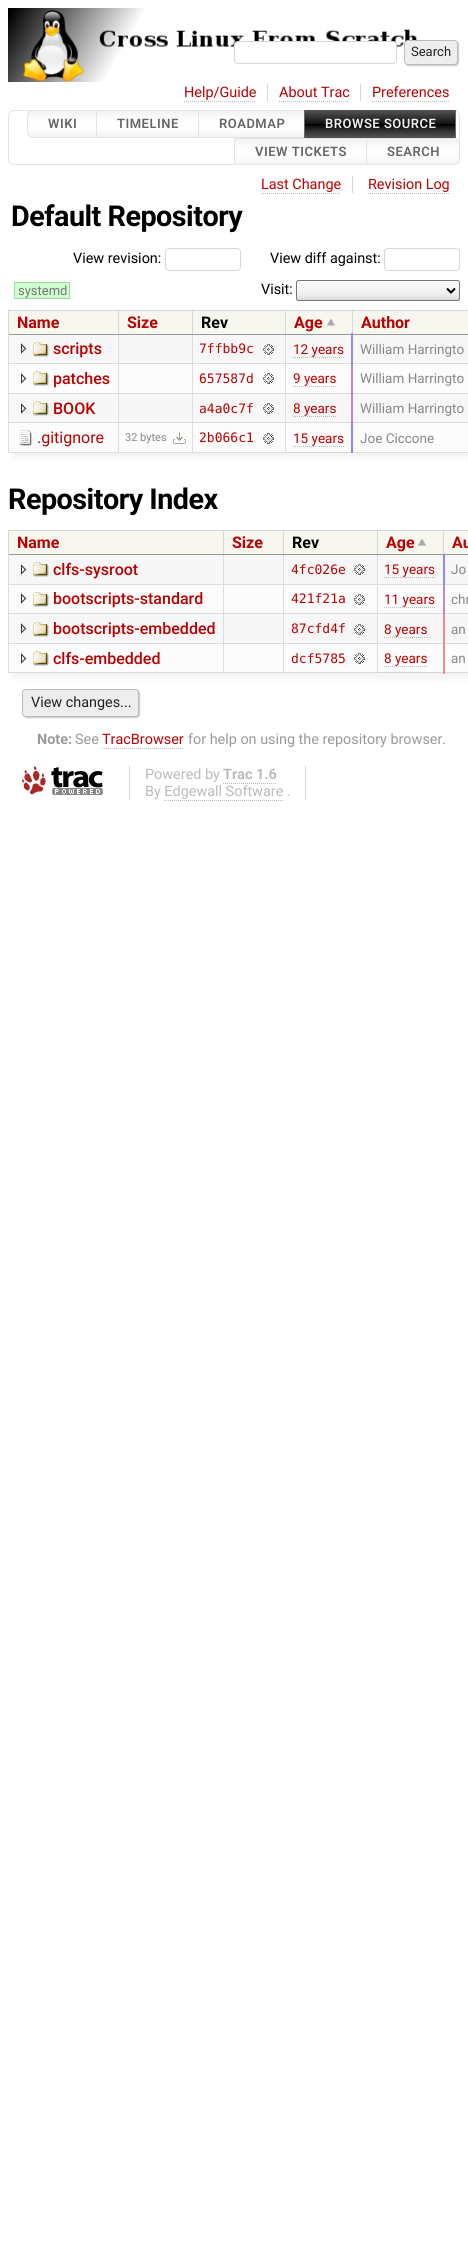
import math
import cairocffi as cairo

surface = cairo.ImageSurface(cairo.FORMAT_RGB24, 468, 2241)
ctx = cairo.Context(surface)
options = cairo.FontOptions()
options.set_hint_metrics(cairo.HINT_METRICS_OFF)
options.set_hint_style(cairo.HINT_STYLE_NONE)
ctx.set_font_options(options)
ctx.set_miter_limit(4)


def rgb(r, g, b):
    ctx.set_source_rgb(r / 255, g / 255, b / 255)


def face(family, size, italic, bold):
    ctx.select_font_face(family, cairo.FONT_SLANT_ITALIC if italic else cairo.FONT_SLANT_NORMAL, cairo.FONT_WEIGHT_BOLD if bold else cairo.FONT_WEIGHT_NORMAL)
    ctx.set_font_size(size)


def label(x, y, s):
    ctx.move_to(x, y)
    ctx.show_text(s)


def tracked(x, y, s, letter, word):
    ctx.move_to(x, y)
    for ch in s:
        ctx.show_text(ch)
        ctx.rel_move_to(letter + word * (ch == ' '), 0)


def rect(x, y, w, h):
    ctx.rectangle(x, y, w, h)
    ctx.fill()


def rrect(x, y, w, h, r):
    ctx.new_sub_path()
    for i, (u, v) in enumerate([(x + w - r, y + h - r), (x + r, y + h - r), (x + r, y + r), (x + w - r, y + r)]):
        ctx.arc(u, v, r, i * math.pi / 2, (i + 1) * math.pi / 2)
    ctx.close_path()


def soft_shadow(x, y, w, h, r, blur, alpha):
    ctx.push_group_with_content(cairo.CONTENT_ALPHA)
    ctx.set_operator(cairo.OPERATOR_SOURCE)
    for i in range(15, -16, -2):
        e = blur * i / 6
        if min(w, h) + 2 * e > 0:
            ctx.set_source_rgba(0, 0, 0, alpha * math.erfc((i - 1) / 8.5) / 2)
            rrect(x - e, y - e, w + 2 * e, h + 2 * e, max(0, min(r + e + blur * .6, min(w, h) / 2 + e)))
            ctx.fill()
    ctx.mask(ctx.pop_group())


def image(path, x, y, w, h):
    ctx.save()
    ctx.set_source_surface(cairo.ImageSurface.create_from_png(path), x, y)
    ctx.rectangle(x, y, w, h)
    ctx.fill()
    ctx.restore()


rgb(255, 255, 255)
ctx.paint()
image('image0.png', 8, 8, 410, 74)
rgb(255, 255, 255)
rrect(234.5, 41.5, 162, 22, 3.5)
ctx.fill_preserve()
rgb(215, 215, 215)
ctx.set_line_width(1)
ctx.stroke()
rgb(204, 204, 204)
soft_shadow(405, 41, 54, 25, 4, 0.5, 1)
rgb(238, 238, 238)
rrect(404.5, 40.5, 53, 24, 3.5)
ctx.fill_preserve()
rgb(187, 187, 187)
ctx.stroke()
face('Roboto', 13, 0, 0)
rgb(34, 34, 34)
label(411, 56, 'Search')
rgb(215, 215, 215)
rect(267, 84, 1, 17)
face('Roboto', 14.4, 0, 0)
rgb(187, 0, 0)
label(184, 97, 'Help/Guide')
ctx.new_path()
ctx.move_to(184, 101.5)
ctx.line_to(256, 101.5)
rgb(187, 187, 187)
ctx.set_dash([1, 1])
ctx.stroke()
rgb(215, 215, 215)
rect(360, 84, 1, 17)
rgb(187, 0, 0)
label(279, 97, 'About Trac')
ctx.new_path()
ctx.move_to(279, 101.5)
ctx.line_to(349, 101.5)
rgb(187, 187, 187)
ctx.stroke()
rgb(187, 0, 0)
label(372, 97, 'Preferences')
ctx.new_path()
ctx.move_to(372, 101.5)
ctx.line_to(449, 101.5)
rgb(187, 187, 187)
ctx.stroke()
rrect(8.5, 110.5, 451, 54, 5.5)
rgb(228, 228, 228)
ctx.set_dash([])
ctx.stroke()
ctx.save()
ctx.new_path()
ctx.move_to(33, 110)
ctx.line_to(97, 110)
ctx.line_to(97, 138)
ctx.line_to(33, 138)
ctx.curve_to(29.5, 138, 27, 135.5, 27, 132)
ctx.line_to(27, 116)
ctx.curve_to(27, 112.5, 29.5, 110, 33, 110)
ctx.close_path()
ctx.clip()
gradient = cairo.LinearGradient(62, 111, 62, 137)
gradient.add_color_stop_rgba(0, 0.949, 0.949, 0.949, 1)
gradient.add_color_stop_rgba(0.25, 0.98, 0.98, 0.98, 1)
gradient.add_color_stop_rgba(0.49, 0.996, 0.996, 0.996, 1)
gradient.add_color_stop_rgba(0.51, 1, 1, 1, 1)
gradient.add_color_stop_rgba(0.85, 0.98, 0.98, 0.98, 1)
gradient.add_color_stop_rgba(1, 0.949, 0.949, 0.949, 1)
ctx.set_source(gradient)
rect(27, 111, 69, 26)
ctx.restore()
ctx.new_path()
ctx.move_to(33, 110.5)
ctx.line_to(96.5, 110.5)
ctx.line_to(96.5, 137.5)
ctx.line_to(33, 137.5)
ctx.curve_to(30, 137.5, 27.5, 135, 27.5, 132)
ctx.line_to(27.5, 116)
ctx.curve_to(27.5, 113, 30, 110.5, 33, 110.5)
ctx.close_path()
ctx.stroke()
face('Roboto SemiBold', 13, 0, 0)
rgb(102, 102, 102)
tracked(48, 128, 'WIKI', 0.5, 0)
gradient = cairo.LinearGradient(148, 111, 148, 137)
gradient.add_color_stop_rgba(0, 0.949, 0.949, 0.949, 1)
gradient.add_color_stop_rgba(0.25, 0.98, 0.98, 0.98, 1)
gradient.add_color_stop_rgba(0.49, 0.996, 0.996, 0.996, 1)
gradient.add_color_stop_rgba(0.51, 1, 1, 1, 1)
gradient.add_color_stop_rgba(0.85, 0.98, 0.98, 0.98, 1)
gradient.add_color_stop_rgba(1, 0.949, 0.949, 0.949, 1)
ctx.set_source(gradient)
rect(97, 111, 101, 26)
ctx.rectangle(96.5, 110.5, 102, 27)
rgb(228, 228, 228)
ctx.stroke()
rgb(102, 102, 102)
tracked(117, 128, 'TIMELINE', 0.5, 0)
gradient = cairo.LinearGradient(252, 111, 252, 137)
gradient.add_color_stop_rgba(0, 0.949, 0.949, 0.949, 1)
gradient.add_color_stop_rgba(0.25, 0.98, 0.98, 0.98, 1)
gradient.add_color_stop_rgba(0.49, 0.996, 0.996, 0.996, 1)
gradient.add_color_stop_rgba(0.51, 1, 1, 1, 1)
gradient.add_color_stop_rgba(0.85, 0.98, 0.98, 0.98, 1)
gradient.add_color_stop_rgba(1, 0.949, 0.949, 0.949, 1)
ctx.set_source(gradient)
rect(199, 111, 105, 26)
ctx.rectangle(198.5, 110.5, 106, 27)
rgb(228, 228, 228)
ctx.stroke()
rgb(102, 102, 102)
tracked(219, 128, 'ROADMAP', 0.5, 0)
ctx.rectangle(304.5, 110.5, 151, 27)
ctx.stroke()
gradient = cairo.LinearGradient(380, 110, 380, 138)
gradient.add_color_stop_rgba(0, 0.333, 0.333, 0.333, 1)
gradient.add_color_stop_rgba(0.25, 0.2, 0.2, 0.2, 1)
gradient.add_color_stop_rgba(0.49, 0.067, 0.067, 0.067, 1)
gradient.add_color_stop_rgba(0.51, 0, 0, 0, 1)
gradient.add_color_stop_rgba(0.75, 0.2, 0.2, 0.2, 1)
gradient.add_color_stop_rgba(1, 0.333, 0.333, 0.333, 1)
ctx.set_source(gradient)
rect(305, 110, 150, 28)
rgb(238, 238, 238)
tracked(325, 128, 'BROWSE SOURCE', 0.5, 0)
gradient = cairo.LinearGradient(301, 139, 301, 164)
gradient.add_color_stop_rgba(0, 0.949, 0.949, 0.949, 1)
gradient.add_color_stop_rgba(0.25, 0.98, 0.98, 0.98, 1)
gradient.add_color_stop_rgba(0.49, 0.996, 0.996, 0.996, 1)
gradient.add_color_stop_rgba(0.51, 1, 1, 1, 1)
gradient.add_color_stop_rgba(0.85, 0.98, 0.98, 0.98, 1)
gradient.add_color_stop_rgba(1, 0.949, 0.949, 0.949, 1)
ctx.set_source(gradient)
rect(235, 139, 131, 25)
ctx.rectangle(234.5, 138.5, 132, 26)
rgb(228, 228, 228)
ctx.stroke()
rgb(102, 102, 102)
tracked(255, 156, 'VIEW TICKETS', 0.5, 0)
ctx.save()
ctx.new_path()
ctx.move_to(366, 138)
ctx.line_to(454, 138)
ctx.curve_to(457.5, 138, 460, 140.5, 460, 144)
ctx.line_to(460, 159)
ctx.curve_to(460, 162.5, 457.5, 165, 454, 165)
ctx.line_to(366, 165)
ctx.close_path()
ctx.clip()
gradient = cairo.LinearGradient(413, 139, 413, 164)
gradient.add_color_stop_rgba(0, 0.949, 0.949, 0.949, 1)
gradient.add_color_stop_rgba(0.25, 0.98, 0.98, 0.98, 1)
gradient.add_color_stop_rgba(0.49, 0.996, 0.996, 0.996, 1)
gradient.add_color_stop_rgba(0.51, 1, 1, 1, 1)
gradient.add_color_stop_rgba(0.85, 0.98, 0.98, 0.98, 1)
gradient.add_color_stop_rgba(1, 0.949, 0.949, 0.949, 1)
ctx.set_source(gradient)
rect(367, 139, 93, 25)
ctx.restore()
ctx.new_path()
ctx.move_to(366.5, 138.5)
ctx.line_to(454, 138.5)
ctx.curve_to(457, 138.5, 459.5, 141, 459.5, 144)
ctx.line_to(459.5, 159)
ctx.curve_to(459.5, 162, 457, 164.5, 454, 164.5)
ctx.line_to(366.5, 164.5)
ctx.close_path()
rgb(228, 228, 228)
ctx.stroke()
rgb(102, 102, 102)
tracked(387, 156, 'SEARCH', 0.5, 0)
rgb(215, 215, 215)
rect(352, 176, 1, 17)
face('Roboto', 14.4, 0, 0)
rgb(187, 0, 0)
label(261, 189, 'Last Change')
ctx.new_path()
ctx.move_to(261, 193.5)
ctx.line_to(341, 193.5)
rgb(187, 187, 187)
ctx.set_dash([1, 1])
ctx.stroke()
rgb(187, 0, 0)
label(368, 189, 'Revision Log')
ctx.new_path()
ctx.move_to(368, 193.5)
ctx.line_to(449, 193.5)
rgb(187, 187, 187)
ctx.stroke()
face('Roboto', 28.75, 0, 1)
rgb(0, 0, 0)
tracked(11, 226, 'Default Repository', -0.5, 0)
face('Roboto', 14.4, 0, 0)
label(73, 263, 'View revision:')
rrect(165.5, 248.5, 75, 22, 3.5)
rgb(215, 215, 215)
ctx.set_dash([])
ctx.stroke()
rgb(0, 0, 0)
label(270, 263, 'View diff against:')
rrect(384.5, 248.5, 75, 22, 3.5)
rgb(215, 215, 215)
ctx.stroke()
rgb(208, 255, 208)
ctx.rectangle(14.5, 282.5, 55, 16)
ctx.fill_preserve()
rgb(153, 221, 153)
ctx.stroke()
face('Roboto', 13, 0, 0)
rgb(119, 119, 119)
label(18, 295, 'systemd')
face('Roboto', 14.4, 0, 0)
rgb(0, 0, 0)
label(261, 294, 'Visit:')
ctx.save()
rrect(296, 280, 164, 21, 2.5)
ctx.clip()
gradient = cairo.LinearGradient(378, 300, 378, 281)
gradient.add_color_stop_rgba(0, 0.859, 0.859, 0.859, 1)
gradient.add_color_stop_rgba(0.3, 0.933, 0.933, 0.933, 1)
gradient.add_color_stop_rgba(1, 0.984, 0.984, 0.984, 1)
ctx.set_source(gradient)
rect(296, 281, 164, 19)
ctx.restore()
rrect(296.5, 280.5, 163, 20, 2)
rgb(118, 118, 118)
ctx.stroke()
ctx.new_path()
ctx.move_to(447, 288.5)
ctx.line_to(451, 292.5)
ctx.line_to(455, 288.5)
rgb(0, 0, 0)
ctx.set_line_width(2)
ctx.stroke()
rgb(242, 242, 242)
soft_shadow(13, 315, 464, 143, 0, 3, 1)
rgb(215, 215, 215)
rect(286, 452, 65, 1)
rgb(247, 247, 240)
rect(9, 311, 459, 23)
rgb(215, 215, 215)
rect(352, 310, 116, 1)
rgb(153, 153, 153)
rect(352, 334, 116, 1)
rgb(215, 215, 215)
rect(352, 310, 1, 25)
rect(285, 310, 68, 1)
rgb(247, 247, 247)
rect(9, 335, 459, 28)
rgb(252, 252, 252)
rect(12, 364, 456, 29)
rgb(221, 221, 221)
rect(8, 363, 460, 1)
rgb(247, 247, 247)
rect(9, 394, 459, 28)
rgb(221, 221, 221)
rect(8, 393, 460, 1)
rgb(252, 252, 252)
rect(12, 423, 456, 29)
rgb(221, 221, 221)
rect(8, 422, 460, 1)
rect(285, 334, 1, 119)
rgb(153, 153, 153)
rect(285, 334, 68, 1)
rgb(215, 215, 215)
rect(285, 310, 1, 25)
rect(192, 310, 94, 1)
rgb(221, 221, 221)
rect(192, 452, 94, 1)
rect(192, 334, 1, 119)
rgb(153, 153, 153)
rect(192, 334, 94, 1)
rgb(215, 215, 215)
rect(192, 310, 1, 25)
rect(118, 310, 75, 1)
rgb(221, 221, 221)
rect(118, 452, 75, 1)
rect(118, 334, 1, 119)
rgb(153, 153, 153)
rect(118, 334, 75, 1)
rgb(215, 215, 215)
rect(118, 310, 1, 25)
rect(8, 310, 111, 1)
rgb(221, 221, 221)
rect(8, 452, 111, 1)
rect(8, 334, 1, 119)
rgb(153, 153, 153)
rect(8, 334, 111, 1)
rgb(215, 215, 215)
rect(8, 310, 1, 25)
face('Roboto', 16, 0, 1)
rgb(187, 0, 0)
label(17, 328, 'Name')
label(127, 328, 'Size')
rgb(0, 0, 0)
label(201, 328, 'Rev')
rgb(187, 0, 0)
label(294, 328, 'Age')
image('image1.png', 327, 319, 8, 7)
label(361, 328, 'Author')
image('image2.png', 21, 343, 6, 11)
image('image3.png', 33, 342, 16, 15)
face('Roboto Medium', 16, 0, 0)
label(53, 354, 'scripts')
face('DejaVu Sans Mono', 13, 0, 0)
label(199, 353, '7ffbb9c')
image('image4.png', 263, 344, 11, 11)
rgb(221, 221, 221)
rect(352, 452, 116, 1)
rgb(136, 136, 255)
rect(351, 422, 2, 31)
rgb(186, 136, 204)
rect(351, 392, 2, 32)
rgb(185, 136, 205)
rect(351, 363, 2, 31)
rgb(157, 136, 233)
rect(351, 333, 2, 32)
face('Roboto', 13.5, 0, 0)
rgb(187, 0, 0)
label(293, 354, '12 years')
ctx.new_path()
ctx.move_to(293, 357.5)
ctx.line_to(344, 357.5)
rgb(187, 187, 187)
ctx.set_line_width(1)
ctx.set_dash([1, 1])
ctx.stroke()
rgb(136, 136, 136)
label(360, 354, 'William Harringto')
image('image5.png', 21, 373, 6, 11)
image('image6.png', 33, 371, 16, 15)
face('Roboto Medium', 16, 0, 0)
rgb(187, 0, 0)
label(53, 384, 'patches')
face('DejaVu Sans Mono', 13, 0, 0)
label(199, 383, '657587d')
image('image7.png', 263, 373, 11, 11)
face('Roboto', 13.5, 0, 0)
label(293, 383, '9 years')
ctx.new_path()
ctx.move_to(293, 386.5)
ctx.line_to(337, 386.5)
rgb(187, 187, 187)
ctx.stroke()
rgb(136, 136, 136)
label(360, 383, 'William Harringto')
image('image2.png', 21, 403, 6, 11)
image('image3.png', 33, 401, 16, 15)
face('Roboto Medium', 16, 0, 0)
rgb(187, 0, 0)
label(53, 414, 'BOOK')
face('DejaVu Sans Mono', 13, 0, 0)
label(199, 413, 'a4a0c7f')
image('image4.png', 263, 403, 11, 11)
face('Roboto', 13.5, 0, 0)
label(293, 413, '8 years')
ctx.new_path()
ctx.move_to(293, 416.5)
ctx.line_to(337, 416.5)
rgb(187, 187, 187)
ctx.stroke()
rgb(136, 136, 136)
label(360, 413, 'William Harringto')
image('image8.png', 19, 430, 13, 16)
face('Roboto', 16, 0, 0)
rgb(187, 0, 0)
label(37, 443, '.gitignore')
face('Roboto', 11, 0, 0)
rgb(136, 136, 136)
label(125, 441, '32 bytes')
image('image9.png', 173, 432, 13, 12)
face('DejaVu Sans Mono', 13, 0, 0)
rgb(187, 0, 0)
label(199, 442, '2b066c1')
image('image7.png', 263, 433, 11, 11)
face('Roboto', 13.5, 0, 0)
label(293, 443, '15 years')
ctx.new_path()
ctx.move_to(293, 446.5)
ctx.line_to(344, 446.5)
rgb(187, 187, 187)
ctx.stroke()
rgb(136, 136, 136)
label(360, 443, 'Joe Ciccone')
face('Roboto', 28.75, 0, 1)
rgb(0, 0, 0)
tracked(8, 509, 'Repository Index', -0.5, 0)
rgb(242, 242, 242)
soft_shadow(13, 535, 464, 143, 0, 3, 1)
rgb(215, 215, 215)
rect(378, 672, 65, 1)
rgb(247, 247, 240)
rect(9, 531, 459, 23)
rgb(215, 215, 215)
rect(443, 530, 25, 1)
rgb(153, 153, 153)
rect(443, 554, 25, 1)
rgb(215, 215, 215)
rect(443, 530, 1, 25)
rect(377, 530, 67, 1)
rgb(247, 247, 247)
rect(9, 555, 459, 29)
rgb(252, 252, 252)
rect(12, 585, 456, 28)
rgb(221, 221, 221)
rect(8, 584, 460, 1)
rgb(247, 247, 247)
rect(9, 614, 459, 29)
rgb(221, 221, 221)
rect(8, 613, 460, 1)
rgb(252, 252, 252)
rect(12, 644, 456, 28)
rgb(221, 221, 221)
rect(8, 643, 460, 1)
rect(377, 554, 1, 119)
rgb(153, 153, 153)
rect(377, 554, 67, 1)
rgb(215, 215, 215)
rect(377, 530, 1, 25)
rect(283, 530, 95, 1)
rgb(221, 221, 221)
rect(283, 672, 95, 1)
rect(283, 554, 1, 119)
rgb(153, 153, 153)
rect(283, 554, 95, 1)
rgb(215, 215, 215)
rect(283, 530, 1, 25)
rect(223, 530, 61, 1)
rgb(221, 221, 221)
rect(223, 672, 61, 1)
rect(223, 554, 1, 119)
rgb(153, 153, 153)
rect(223, 554, 61, 1)
rgb(215, 215, 215)
rect(223, 530, 1, 25)
rect(8, 530, 216, 1)
rgb(221, 221, 221)
rect(8, 672, 216, 1)
rect(8, 554, 1, 119)
rgb(153, 153, 153)
rect(8, 554, 216, 1)
rgb(215, 215, 215)
rect(8, 530, 1, 25)
face('Roboto', 16, 0, 1)
rgb(187, 0, 0)
label(17, 548, 'Name')
label(232, 548, 'Size')
rgb(0, 0, 0)
label(292, 548, 'Rev')
rgb(187, 0, 0)
label(386, 548, 'Age')
image('image1.png', 418, 539, 8, 7)
label(452, 548, 'Au')
image('image2.png', 21, 564, 6, 11)
image('image3.png', 33, 562, 16, 15)
face('Roboto Medium', 16, 0, 0)
label(53, 575, 'clfs-sysroot')
face('DejaVu Sans Mono', 13, 0, 0)
label(291, 574, '4fc026e')
image('image4.png', 354, 564, 11, 11)
rgb(221, 221, 221)
rect(443, 672, 25, 1)
rgb(255, 136, 136)
rect(443, 642, 2, 32)
rgb(254, 136, 136)
rect(443, 613, 2, 31)
rgb(196, 136, 194)
rect(443, 583, 2, 32)
rgb(136, 136, 255)
rect(443, 554, 2, 31)
face('Roboto', 13.5, 0, 0)
rgb(187, 0, 0)
label(384, 574, '15 years')
ctx.new_path()
ctx.move_to(384, 577.5)
ctx.line_to(436, 577.5)
rgb(187, 187, 187)
ctx.stroke()
rgb(136, 136, 136)
label(451, 574, 'Jo')
image('image5.png', 21, 593, 6, 11)
image('image6.png', 33, 592, 16, 15)
face('Roboto Medium', 16, 0, 0)
rgb(187, 0, 0)
label(53, 604, 'bootscripts-standard')
face('DejaVu Sans Mono', 13, 0, 0)
label(291, 603, '421f21a')
image('image7.png', 354, 594, 11, 11)
face('Roboto', 13.5, 0, 0)
label(384, 604, '11 years')
ctx.new_path()
ctx.move_to(384, 607.5)
ctx.line_to(436, 607.5)
rgb(187, 187, 187)
ctx.stroke()
rgb(136, 136, 136)
label(451, 604, 'chr')
image('image2.png', 21, 623, 6, 11)
image('image3.png', 33, 622, 16, 15)
face('Roboto Medium', 16, 0, 0)
rgb(187, 0, 0)
label(53, 634, 'bootscripts-embedded')
face('DejaVu Sans Mono', 13, 0, 0)
label(291, 633, '87cfd4f')
image('image4.png', 354, 624, 11, 11)
face('Roboto', 13.5, 0, 0)
label(384, 634, '8 years')
ctx.new_path()
ctx.move_to(384, 637.5)
ctx.line_to(428, 637.5)
rgb(187, 187, 187)
ctx.stroke()
rgb(136, 136, 136)
label(451, 634, 'an')
image('image5.png', 21, 653, 6, 11)
image('image6.png', 33, 651, 16, 15)
face('Roboto Medium', 16, 0, 0)
rgb(187, 0, 0)
label(53, 664, 'clfs-embedded')
face('DejaVu Sans Mono', 13, 0, 0)
label(291, 663, 'dcf5785')
image('image7.png', 354, 653, 11, 11)
face('Roboto', 13.5, 0, 0)
label(384, 663, '8 years')
ctx.new_path()
ctx.move_to(384, 666.5)
ctx.line_to(428, 666.5)
rgb(187, 187, 187)
ctx.stroke()
rgb(136, 136, 136)
label(451, 663, 'an')
rgb(204, 204, 204)
soft_shadow(23, 690, 117, 28, 4, 0.5, 1)
rgb(238, 238, 238)
rrect(22.5, 689.5, 116, 27, 3.5)
ctx.fill_preserve()
rgb(187, 187, 187)
ctx.set_dash([])
ctx.stroke()
face('Roboto', 14.4, 0, 0)
rgb(34, 34, 34)
label(31, 707, 'View changes...')
face('Roboto', 14.4, 0, 1)
rgb(153, 153, 153)
label(37, 744, 'Note:')
face('Roboto', 14.4, 0, 0)
label(75, 744, 'See')
rgb(187, 0, 0)
label(102, 744, 'TracBrowser')
ctx.new_path()
ctx.move_to(102, 748.5)
ctx.line_to(184, 748.5)
rgb(187, 187, 187)
ctx.set_dash([1, 1])
ctx.stroke()
rgb(153, 153, 153)
label(188, 744, 'for help on using the repository browser.')
image('image10.png', 22, 766, 81, 29)
rgb(215, 215, 215)
rect(305, 766, 1, 34)
rect(129, 766, 1, 34)
rgb(187, 187, 187)
label(145, 779, 'Powered by')
face('Roboto', 14.4, 0, 1)
label(223, 779, 'Trac 1.6')
ctx.new_path()
ctx.move_to(223, 783.5)
ctx.line_to(277, 783.5)
ctx.stroke()
face('Roboto', 14.4, 0, 0)
label(145, 796, 'By Edgewall Software .')
ctx.new_path()
ctx.move_to(164, 800.5)
ctx.line_to(283, 800.5)
ctx.stroke()
surface.write_to_png('render.png')
